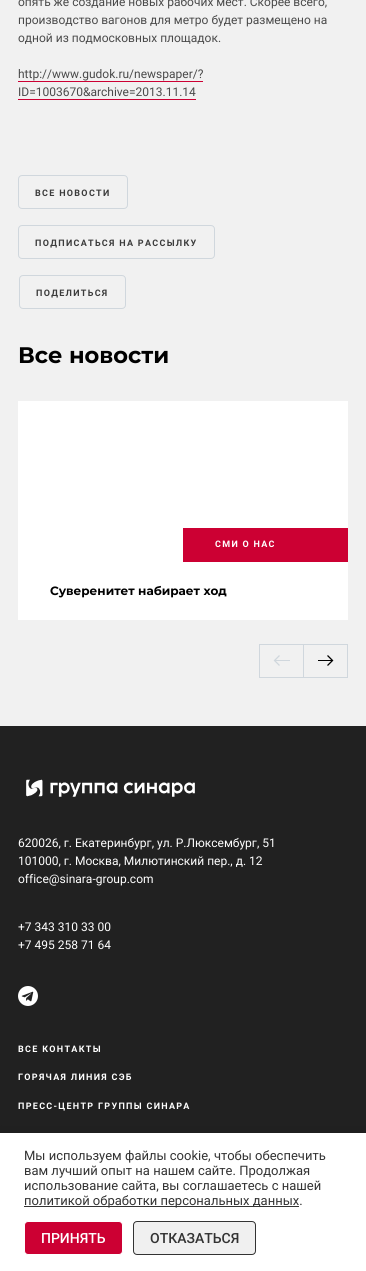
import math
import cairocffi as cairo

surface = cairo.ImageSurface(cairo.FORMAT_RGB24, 366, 1271)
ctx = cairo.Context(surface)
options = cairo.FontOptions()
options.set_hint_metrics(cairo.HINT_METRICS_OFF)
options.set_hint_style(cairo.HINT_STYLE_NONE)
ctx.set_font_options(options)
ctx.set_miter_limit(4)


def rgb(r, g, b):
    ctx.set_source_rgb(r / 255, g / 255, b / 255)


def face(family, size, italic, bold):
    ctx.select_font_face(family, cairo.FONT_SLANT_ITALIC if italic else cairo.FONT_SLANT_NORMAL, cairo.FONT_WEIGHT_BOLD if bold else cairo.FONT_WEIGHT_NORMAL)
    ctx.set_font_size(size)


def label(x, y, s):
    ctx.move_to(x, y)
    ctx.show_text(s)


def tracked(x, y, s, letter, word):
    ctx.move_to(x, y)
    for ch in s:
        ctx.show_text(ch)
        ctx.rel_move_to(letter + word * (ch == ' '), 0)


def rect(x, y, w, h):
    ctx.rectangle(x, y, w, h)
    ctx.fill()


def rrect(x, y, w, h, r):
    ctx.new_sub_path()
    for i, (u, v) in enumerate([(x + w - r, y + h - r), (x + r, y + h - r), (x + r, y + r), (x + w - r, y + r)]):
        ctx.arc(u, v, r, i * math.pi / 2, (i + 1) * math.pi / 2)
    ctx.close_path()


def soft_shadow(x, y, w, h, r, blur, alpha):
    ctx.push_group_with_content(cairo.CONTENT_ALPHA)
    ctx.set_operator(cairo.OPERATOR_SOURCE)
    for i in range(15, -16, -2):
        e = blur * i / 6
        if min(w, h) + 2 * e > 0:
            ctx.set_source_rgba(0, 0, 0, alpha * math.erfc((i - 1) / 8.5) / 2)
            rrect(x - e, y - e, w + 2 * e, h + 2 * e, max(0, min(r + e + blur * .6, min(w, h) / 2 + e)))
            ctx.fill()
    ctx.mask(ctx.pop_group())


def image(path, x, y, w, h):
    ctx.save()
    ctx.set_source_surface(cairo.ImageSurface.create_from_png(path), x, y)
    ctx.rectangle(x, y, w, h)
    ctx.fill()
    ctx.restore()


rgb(241, 241, 241)
ctx.paint()
face('Roboto', 12, 0, 0)
rgb(74, 74, 74)
label(18, 6, 'опять же создание новых рабочих мест. Скорее всего,')
label(18, 24, 'производство вагонов для метро будет размещено на')
label(18, 42, 'одной из подмосковных площадок.')
label(18, 78, 'http://www.gudok.ru/newspaper/?')
rgb(204, 0, 51)
rect(18, 81, 185, 1)
rgb(74, 74, 74)
label(18, 96, 'ID=1003670&archive=2013.11.14')
rgb(204, 0, 51)
rect(18, 99, 178, 1)
rrect(18.5, 175.5, 109, 33, 3.5)
rgb(208, 215, 221)
ctx.set_line_width(1)
ctx.stroke()
face('Roboto', 9, 0, 1)
rgb(60, 60, 60)
tracked(35, 196, 'ВСЕ НОВОСТИ', 1.3, 0)
rrect(18.5, 225.5, 196, 33, 3.5)
rgb(208, 215, 221)
ctx.stroke()
rgb(60, 60, 60)
tracked(35, 246, 'ПОДПИСАТЬСЯ НА РАССЫЛКУ', 1.3, 0)
rrect(19.5, 275.5, 106, 33, 3.5)
rgb(208, 215, 221)
ctx.stroke()
rgb(60, 60, 60)
tracked(36, 296, 'ПОДЕЛИТЬСЯ', 1.3, 0)
face('Montserrat', 22.5, 0, 1)
rgb(0, 0, 0)
label(18, 363, 'Все новости')
rgb(255, 255, 255)
rect(18, 401, 330, 219)
rgb(204, 0, 51)
rect(183, 528, 165, 34)
face('Roboto', 9, 0, 1)
rgb(255, 255, 255)
tracked(215, 547, 'СМИ О НАС', 1.3, 0)
face('Montserrat', 12, 0, 1)
rgb(0, 0, 0)
label(50, 595, 'Суверенитет набирает ход')
ctx.rectangle(259.5, 644.5, 44, 33)
rgb(208, 215, 221)
ctx.stroke()
ctx.new_path()
ctx.move_to(279.5, 655.5)
ctx.line_to(274.5, 660.5)
ctx.line_to(279.5, 665.5)
ctx.set_line_width(1.3)
ctx.stroke()
rect(275, 660, 15, 1)
ctx.rectangle(303.5, 644.5, 44, 33)
ctx.set_line_width(1)
ctx.stroke()
ctx.new_path()
ctx.move_to(327.5, 665.5)
ctx.line_to(332.5, 660.5)
ctx.line_to(327.5, 655.5)
rgb(0, 0, 0)
ctx.set_line_width(1.3)
ctx.stroke()
rect(318, 660, 15, 1)
rgb(33, 33, 33)
rect(0, 726, 366, 407)
image('image0.png', 26, 779, 169, 18)
face('Roboto', 12, 0, 0)
rgb(255, 255, 255)
label(18, 847, '620026, г. Екатеринбург, ул. Р.Люксембург, 51')
label(18, 865, '101000, г. Москва, Милютинский пер., д. 12')
label(18, 883, 'office@sinara-group.com')
label(18, 931, '+7 343 310 33 00')
label(18, 949, '+7 495 258 71 64')
image('image1.png', 18, 986, 20, 20)
face('Roboto', 9, 0, 1)
tracked(18, 1052, 'ВСЕ КОНТАКТЫ', 1.3, 0)
tracked(18, 1080, 'ГОРЯЧАЯ ЛИНИЯ СЭБ', 1.3, 0)
tracked(18, 1109, 'ПРЕСС-ЦЕНТР ГРУППЫ СИНАРА', 1.3, 0)
rgb(0, 0, 0)
soft_shadow(0, 1131, 366, 138, 0, 5, 0.1)
rgb(255, 255, 255)
rect(0, 1133, 366, 138)
face('Roboto', 13, 0, 0)
rgb(51, 51, 51)
label(24, 1160, 'Мы используем файлы cookie, чтобы обеспечить')
label(24, 1175, 'вам лучший опыт на нашем сайте. Продолжая')
label(24, 1190, 'использование сайта, вы соглашаетесь с нашей')
rect(24, 1206, 275, 1)
label(24, 1205, 'политикой обработки персональных данных.')
rgb(204, 0, 51)
rrect(24.5, 1221.5, 98, 33, 3.5)
ctx.fill_preserve()
rgb(255, 255, 255)
ctx.set_line_width(1)
ctx.stroke()
face('Roboto Medium', 14, 0, 0)
label(41, 1243, 'ПРИНЯТЬ')
rgb(240, 240, 240)
rrect(133.5, 1221.5, 122, 33, 3.5)
ctx.fill_preserve()
rgb(51, 51, 51)
ctx.stroke()
label(150, 1243, 'ОТКАЗАТЬСЯ')
surface.write_to_png('render.png')
